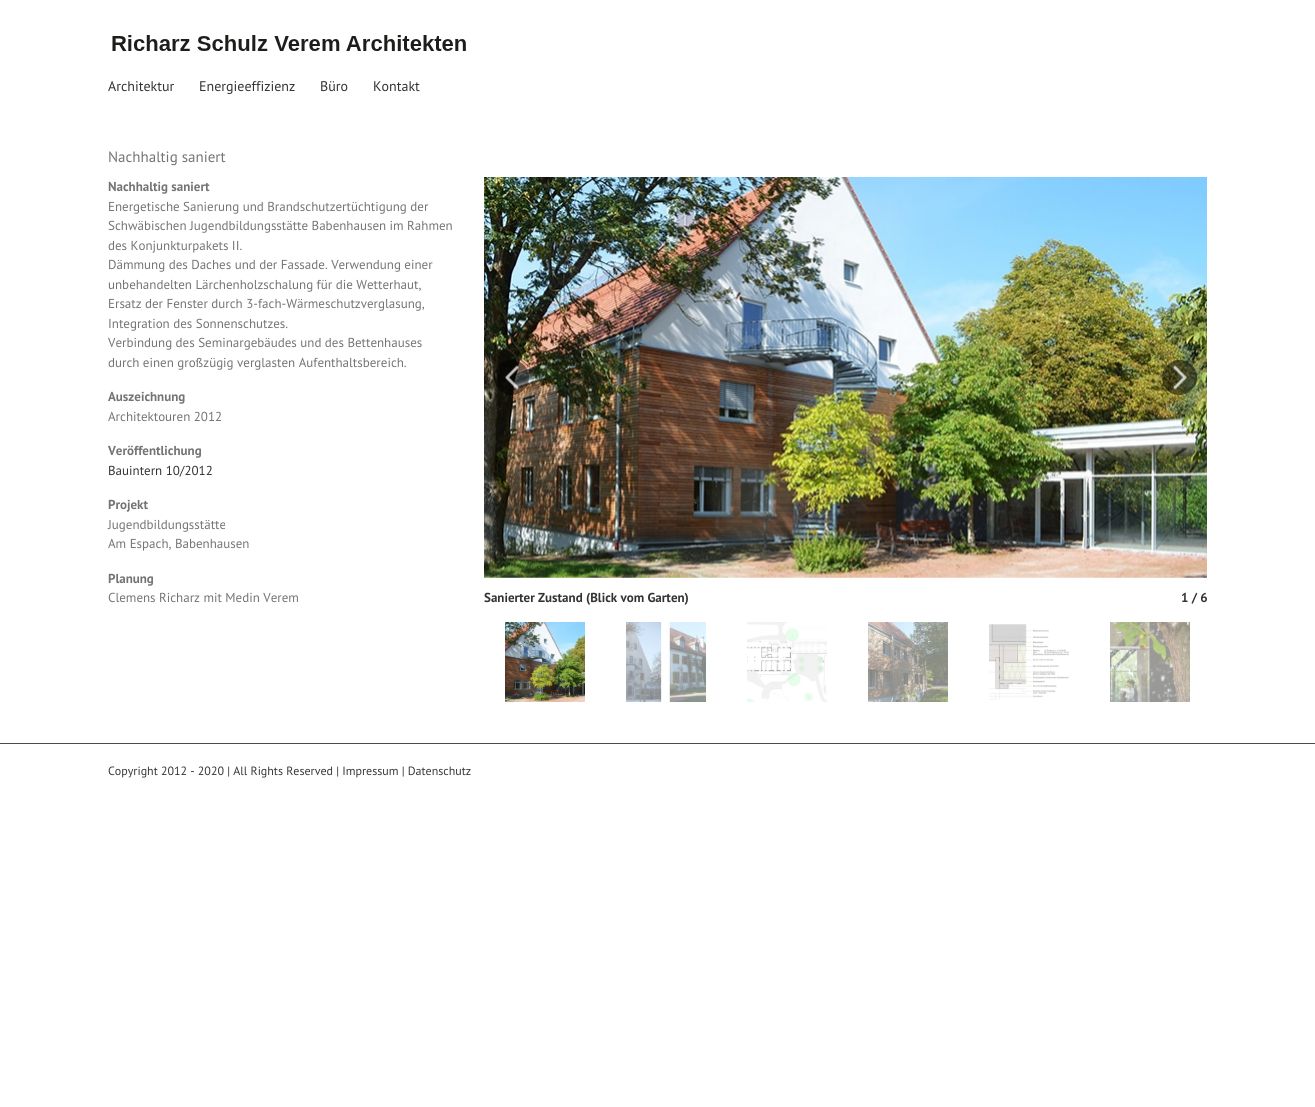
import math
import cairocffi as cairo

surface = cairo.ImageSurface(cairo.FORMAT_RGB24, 1315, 1107)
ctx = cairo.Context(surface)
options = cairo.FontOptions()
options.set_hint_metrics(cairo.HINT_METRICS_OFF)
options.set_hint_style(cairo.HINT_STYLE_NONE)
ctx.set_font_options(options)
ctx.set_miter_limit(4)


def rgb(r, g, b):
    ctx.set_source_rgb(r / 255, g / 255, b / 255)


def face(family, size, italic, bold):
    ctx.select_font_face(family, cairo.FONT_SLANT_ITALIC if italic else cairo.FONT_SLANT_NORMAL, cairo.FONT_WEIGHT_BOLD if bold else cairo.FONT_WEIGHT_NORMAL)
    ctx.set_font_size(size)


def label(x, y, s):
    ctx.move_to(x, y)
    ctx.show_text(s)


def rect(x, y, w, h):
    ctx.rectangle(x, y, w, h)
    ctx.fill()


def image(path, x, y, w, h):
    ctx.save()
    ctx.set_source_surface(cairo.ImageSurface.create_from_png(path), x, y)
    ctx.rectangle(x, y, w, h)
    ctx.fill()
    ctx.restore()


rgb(255, 255, 255)
ctx.paint()
image('image0.png', 112, 35, 354, 16)
face('PT Sans', 14, 0, 0)
rgb(51, 51, 51)
label(108, 91, 'Architektur')
label(199, 91, 'Energieeffizienz')
label(320, 91, 'Büro')
label(373, 91, 'Kontakt')
face('PT Sans', 15, 0, 0)
rgb(116, 116, 116)
label(108, 162, 'Nachhaltig saniert')
face('PT Sans', 13, 0, 1)
label(108, 191, 'Nachhaltig saniert')
face('PT Sans', 13, 0, 0)
label(108, 211, 'Energetische Sanierung und Brandschutzertüchtigung der')
label(108, 230, 'Schwäbischen Jugendbildungsstätte Babenhausen im Rahmen')
label(108, 250, 'des Konjunkturpakets II.')
label(108, 269, 'Dämmung des Daches und der Fassade. Verwendung einer')
label(108, 289, 'unbehandelten Lärchenholzschalung für die Wetterhaut,')
label(108, 308, 'Ersatz der Fenster durch 3-fach-Wärmeschutzverglasung,')
label(108, 328, 'Integration des Sonnenschutzes.')
label(108, 347, 'Verbindung des Seminargebäudes und des Bettenhauses')
label(108, 367, 'durch einen großzügig verglasten Aufenthaltsbereich.')
face('PT Sans', 13, 0, 1)
label(108, 401, 'Auszeichnung')
face('PT Sans', 13, 0, 0)
label(108, 421, 'Architektouren 2012')
face('PT Sans', 13, 0, 1)
label(108, 455, 'Veröffentlichung')
face('PT Sans', 13, 0, 0)
rgb(51, 51, 51)
label(108, 475, 'Bauintern 10/2012')
face('PT Sans', 13, 0, 1)
rgb(116, 116, 116)
label(108, 509, 'Projekt')
face('PT Sans', 13, 0, 0)
label(108, 529, 'Jugendbildungsstätte')
label(108, 548, 'Am Espach, Babenhausen')
face('PT Sans', 13, 0, 1)
label(108, 583, 'Planung')
face('PT Sans', 13, 0, 0)
label(108, 602, 'Clemens Richarz mit Medin Verem')
image('image1.png', 484, 177, 723, 401)
ctx.set_source_rgba(0, 0, 0, 0.5)
ctx.arc(511.5, 377.5, 17.5, 0, 2 * math.pi)
ctx.fill()
image('image2.png', 505, 365, 14, 25)
ctx.arc(1179.5, 377.5, 17.5, 0, 2 * math.pi)
ctx.fill()
image('image3.png', 1173, 365, 14, 25)
face('PT Sans', 13, 0, 1)
rgb(51, 51, 51)
label(484, 602, 'Sanierter Zustand (Blick vom Garten)')
label(1181, 602, '1 / 6')
image('image4.png', 505, 622, 80, 80)
image('image5.png', 626, 622, 80, 80)
image('image6.png', 747, 622, 80, 80)
image('image7.png', 868, 622, 80, 80)
image('image8.png', 989, 624, 80, 76)
image('image9.png', 1110, 622, 80, 80)
rgb(75, 76, 77)
rect(0, 743, 1315, 1)
face('PT Sans', 12, 0, 0)
rgb(54, 56, 57)
label(108, 775, 'Copyright 2012 - 2020 | All Rights Reserved | Impressum | Datenschutz')
surface.write_to_png('render.png')
